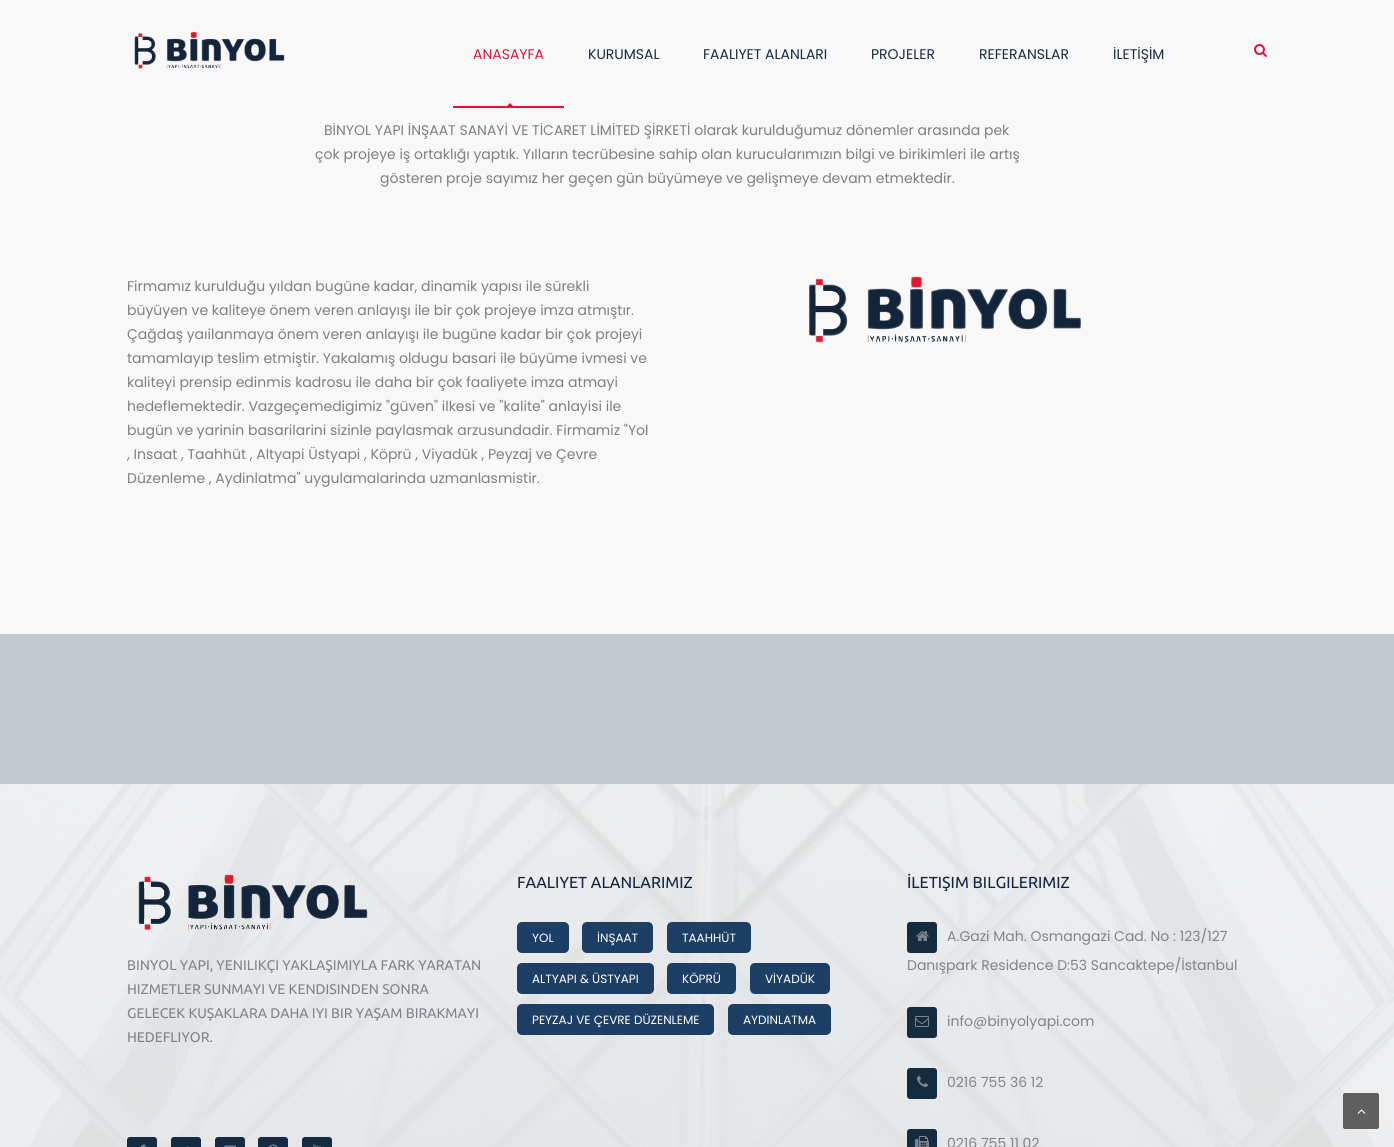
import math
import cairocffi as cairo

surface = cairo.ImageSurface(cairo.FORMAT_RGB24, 1394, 1147)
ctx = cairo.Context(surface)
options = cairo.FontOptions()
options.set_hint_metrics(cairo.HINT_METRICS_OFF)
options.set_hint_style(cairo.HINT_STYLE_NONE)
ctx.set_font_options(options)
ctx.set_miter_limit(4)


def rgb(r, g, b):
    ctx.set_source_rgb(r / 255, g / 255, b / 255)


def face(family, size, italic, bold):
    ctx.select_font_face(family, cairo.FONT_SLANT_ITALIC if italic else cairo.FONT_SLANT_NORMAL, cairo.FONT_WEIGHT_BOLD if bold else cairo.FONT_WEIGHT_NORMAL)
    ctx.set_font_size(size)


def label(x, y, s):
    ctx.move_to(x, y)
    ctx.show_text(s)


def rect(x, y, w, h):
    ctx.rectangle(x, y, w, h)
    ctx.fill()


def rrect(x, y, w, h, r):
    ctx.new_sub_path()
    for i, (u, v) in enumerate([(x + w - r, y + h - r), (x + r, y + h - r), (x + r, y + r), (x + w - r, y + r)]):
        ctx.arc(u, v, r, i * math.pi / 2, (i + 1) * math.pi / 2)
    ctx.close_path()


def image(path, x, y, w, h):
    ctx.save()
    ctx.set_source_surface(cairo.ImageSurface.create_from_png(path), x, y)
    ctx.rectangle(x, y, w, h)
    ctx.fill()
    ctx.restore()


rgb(248, 248, 248)
ctx.paint()
image('image0.png', 134, 31, 151, 38)
face('Poppins', 14, 0, 0)
rgb(217, 24, 59)
label(473, 59, 'ANASAYFA')
ctx.save()
ctx.rectangle(453, 0, 111, 108)
ctx.clip()
ctx.new_path()
ctx.move_to(510, 103)
ctx.line_to(513.5, 106.5)
ctx.line_to(510, 110)
ctx.line_to(506.5, 106.5)
ctx.close_path()
ctx.fill()
ctx.restore()
rect(453, 106, 111, 2)
rgb(21, 44, 64)
label(588, 59, 'KURUMSAL')
label(703, 59, 'FAALIYET ALANLARI')
label(871, 59, 'PROJELER')
label(979, 59, 'REFERANSLAR')
label(1113, 59, 'İLETİŞİM')
image('image1.png', 1254, 44, 13, 13)
rgb(127, 127, 127)
label(324, 135, 'BİNYOL YAPI İNŞAAT SANAYİ VE TİCARET LİMİTED ŞİRKETİ olarak kurulduğumuz dönemler arasında pek')
label(315, 159, 'çok projeye iş ortaklığı yaptık. Yılların tecrübesine sahip olan kurucularımızın bilgi ve birikimleri ile artış')
label(380, 183, 'gösteren proje sayımız her geçen gün büyümeye ve gelişmeye devam etmektedir.')
label(127, 291, 'Firmamız kurulduğu yıldan bugüne kadar, dinamik yapısı ile sürekli')
label(127, 315, 'büyüyen ve kaliteye önem veren anlayışı ile bir çok projeye imza atmıştır.')
label(127, 339, 'Çağdaş yaıilanmaya önem veren anlayışı ile bugüne kadar bir çok projeyi')
label(127, 363, 'tamamlayıp teslim etmiştir. Yakalamış oldugu basari ile büyüme ivmesi ve')
label(127, 387, 'kaliteyi prensip edinmis kadrosu ile daha bir çok faaliyete imza atmayi')
label(127, 411, 'hedeflemektedir. Vazgeçemedigimiz "güven" ilkesi ve "kalite" anlayisi ile')
label(127, 435, 'bugün ve yarinin basarilarini sizinle paylasmak arzusundadir. Firmamiz "Yol')
label(127, 459, ', Insaat , Taahhüt , Altyapi Üstyapi , Köprü , Viyadük , Peyzaj ve Çevre')
label(127, 483, 'Düzenleme , Aydinlatma" uygulamalarinda uzmanlasmistir.')
image('image2.png', 809, 276, 273, 67)
rgb(195, 200, 205)
rect(0, 634, 1394, 150)
image('image3.png', 0, 784, 1394, 363)
image('image4.png', 138, 874, 230, 56)
face('Ubuntu', 14, 0, 0)
rgb(125, 133, 140)
label(127, 970, 'BINYOL YAPI, YENILIKÇI YAKLAŞIMIYLA FARK YARATAN')
label(127, 994, 'HIZMETLER SUNMAYI VE KENDISINDEN SONRA')
label(127, 1018, 'GELECEK KUŞAKLARA DAHA IYI BIR YAŞAM BIRAKMAYI')
label(127, 1042, 'HEDEFLIYOR.')
rgb(21, 44, 64)
rrect(127, 1137, 30, 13, 3)
ctx.fill()
image('image5.png', 140, 1144, 6, 3)
rrect(171, 1137, 30, 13, 3)
ctx.fill()
image('image6.png', 186, 1146, 6, 1)
rrect(215, 1137, 30, 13, 3)
ctx.fill()
image('image7.png', 224, 1145, 12, 2)
rrect(258, 1137, 30, 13, 3)
ctx.fill()
image('image8.png', 268, 1144, 10, 3)
rrect(302, 1137, 30, 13, 3)
ctx.fill()
image('image9.png', 313, 1144, 8, 3)
face('Ubuntu', 16, 0, 0)
rgb(19, 37, 59)
label(517, 888, 'FAALIYET ALANLARIMIZ')
rgb(29, 63, 102)
rrect(517, 922, 52, 31, 5)
ctx.fill()
face('Poppins', 12, 0, 0)
rgb(255, 255, 255)
label(532, 942, 'YOL')
rgb(29, 63, 102)
rrect(582, 922, 71, 31, 5)
ctx.fill()
rgb(255, 255, 255)
label(597, 942, 'İNŞAAT')
rgb(29, 63, 102)
rrect(667, 922, 84, 31, 5)
ctx.fill()
rgb(255, 255, 255)
label(682, 942, 'TAAHHÜT')
rgb(29, 63, 102)
rrect(517, 963, 137, 31, 5)
ctx.fill()
rgb(255, 255, 255)
label(532, 983, 'ALTYAPI & ÜSTYAPI')
rgb(29, 63, 102)
rrect(667, 963, 69, 31, 5)
ctx.fill()
rgb(255, 255, 255)
label(682, 983, 'KÖPRÜ')
rgb(29, 63, 102)
rrect(750, 963, 80, 31, 5)
ctx.fill()
rgb(255, 255, 255)
label(765, 983, 'VİYADÜK')
rgb(29, 63, 102)
rrect(517, 1004, 197, 31, 5)
ctx.fill()
rgb(255, 255, 255)
label(532, 1024, 'PEYZAJ VE ÇEVRE DÜZENLEME')
rgb(29, 63, 102)
rrect(728, 1004, 103, 31, 5)
ctx.fill()
rgb(255, 255, 255)
label(743, 1024, 'AYDINLATMA')
face('Ubuntu', 16, 0, 0)
rgb(19, 37, 59)
label(907, 888, 'İLETIŞIM BILGILERIMIZ')
rgb(21, 44, 64)
rrect(907, 922, 30, 31, 3)
ctx.fill()
image('image10.png', 916, 931, 13, 10)
face('Poppins', 14, 0, 0)
rgb(125, 133, 140)
label(947, 941, 'A.Gazi Mah. Osmangazi Cad. No : 123/127')
label(907, 970, 'Danışpark Residence D:53 Sancaktepe/İstanbul')
rgb(21, 44, 64)
rrect(907, 1007, 30, 31, 3)
ctx.fill()
image('image11.png', 915, 1016, 14, 11)
rgb(125, 133, 140)
label(947, 1026, 'info@binyolyapi.com')
rgb(21, 44, 64)
rrect(907, 1068, 30, 31, 3)
ctx.fill()
image('image12.png', 917, 1076, 11, 11)
rgb(125, 133, 140)
label(947, 1087, '0216 755 36 12')
rgb(21, 44, 64)
rrect(907, 1129, 30, 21, 3)
ctx.fill()
image('image13.png', 915, 1136, 14, 11)
rgb(125, 133, 140)
label(947, 1148, '0216 755 11 02')
rgb(95, 95, 95)
rrect(1343, 1093, 36, 36, 2)
ctx.fill()
image('image14.png', 1357, 1109, 9, 5)
surface.write_to_png('render.png')
